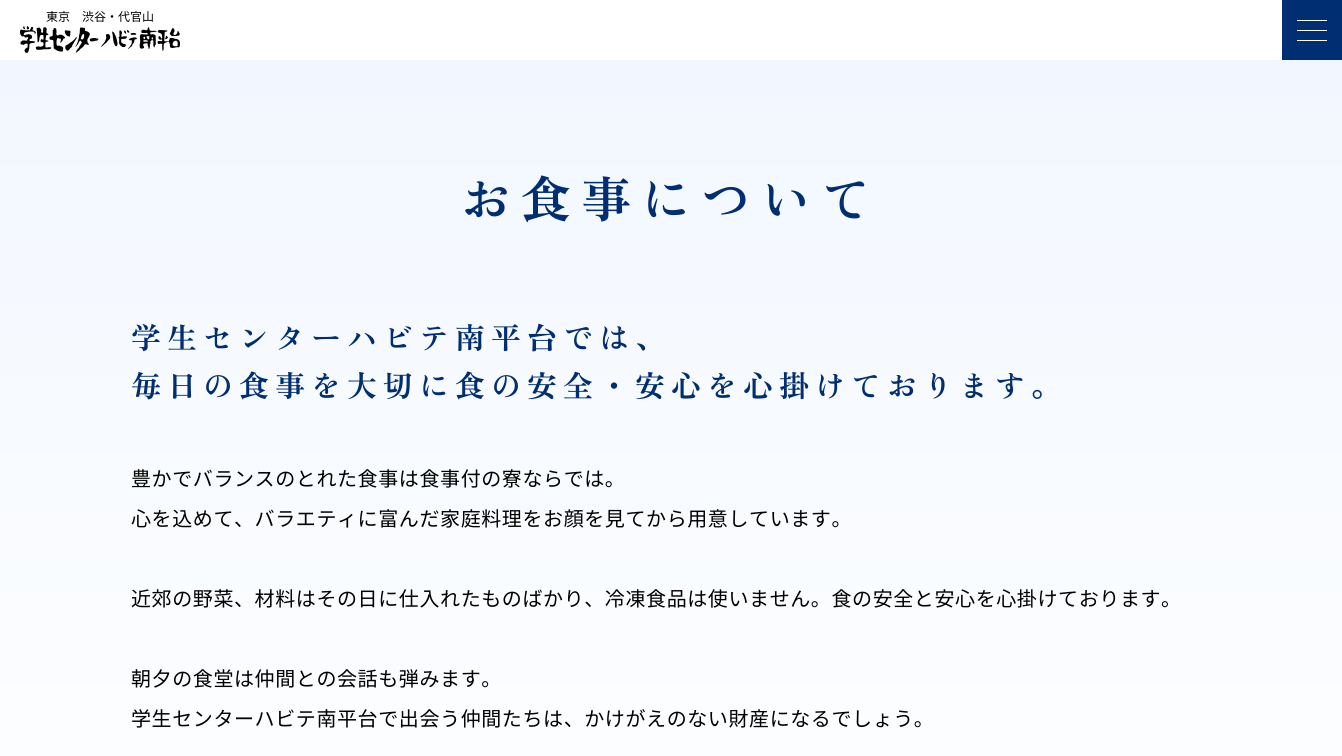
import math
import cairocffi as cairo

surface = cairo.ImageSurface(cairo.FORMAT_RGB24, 1342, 756)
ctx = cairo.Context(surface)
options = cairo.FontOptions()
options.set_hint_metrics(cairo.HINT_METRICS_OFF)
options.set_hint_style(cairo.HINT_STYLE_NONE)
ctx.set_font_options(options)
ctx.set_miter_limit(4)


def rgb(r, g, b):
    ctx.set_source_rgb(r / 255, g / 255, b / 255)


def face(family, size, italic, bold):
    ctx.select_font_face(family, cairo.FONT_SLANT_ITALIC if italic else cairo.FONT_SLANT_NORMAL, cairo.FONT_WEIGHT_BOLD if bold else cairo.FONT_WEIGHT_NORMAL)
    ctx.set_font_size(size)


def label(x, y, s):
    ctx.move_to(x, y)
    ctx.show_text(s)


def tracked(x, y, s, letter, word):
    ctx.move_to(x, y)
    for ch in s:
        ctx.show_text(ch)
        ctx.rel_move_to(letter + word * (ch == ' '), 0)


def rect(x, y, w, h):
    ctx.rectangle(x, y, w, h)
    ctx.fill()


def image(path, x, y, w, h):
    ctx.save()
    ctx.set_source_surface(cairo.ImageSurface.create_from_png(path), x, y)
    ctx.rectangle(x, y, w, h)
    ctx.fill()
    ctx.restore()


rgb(255, 255, 255)
ctx.paint()
face('Noto Sans JP', 12, 0, 0)
rgb(0, 0, 0)
label(46, 21, '東京　渋谷・代官山')
image('image0.png', 20, 26, 160, 27)
rgb(0, 46, 114)
rect(1282, 0, 60, 60)
rgb(255, 255, 255)
rect(1297, 20, 30, 1)
rect(1297, 30, 30, 1)
rect(1297, 40, 30, 1)
gradient = cairo.LinearGradient(671, 60, 671, 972)
gradient.add_color_stop_rgba(0, 0.949, 0.969, 1, 1)
gradient.add_color_stop_rgba(1, 1, 1, 1, 1)
ctx.set_source(gradient)
rect(0, 60, 1342, 696)
face('Zen Old Mincho', 50, 0, 1)
rgb(0, 46, 114)
tracked(461, 218, 'お食事について', 10, 0)
face('Zen Old Mincho', 30, 0, 1)
tracked(131, 349, '学生センターハビテ南平台では、', 6, 0)
tracked(131, 397, '毎日の食事を大切に食の安全・安心を心掛けております。', 6, 0)
face('Noto Sans JP', 20, 0, 0)
rgb(0, 0, 0)
tracked(131, 486, '豊かでバランスのとれた食事は食事付の寮ならでは。', 0.6, 0)
tracked(131, 526, '心を込めて、バラエティに富んだ家庭料理をお顔を見てから用意しています。', 0.6, 0)
tracked(131, 606, '近郊の野菜、材料はその日に仕入れたものばかり、冷凍食品は使いません。食の安全と安心を心掛けております。', 0.6, 0)
tracked(131, 686, '朝夕の食堂は仲間との会話も弾みます。', 0.6, 0)
tracked(131, 726, '学生センターハビテ南平台で出会う仲間たちは、かけがえのない財産になるでしょう。', 0.6, 0)
surface.write_to_png('render.png')
